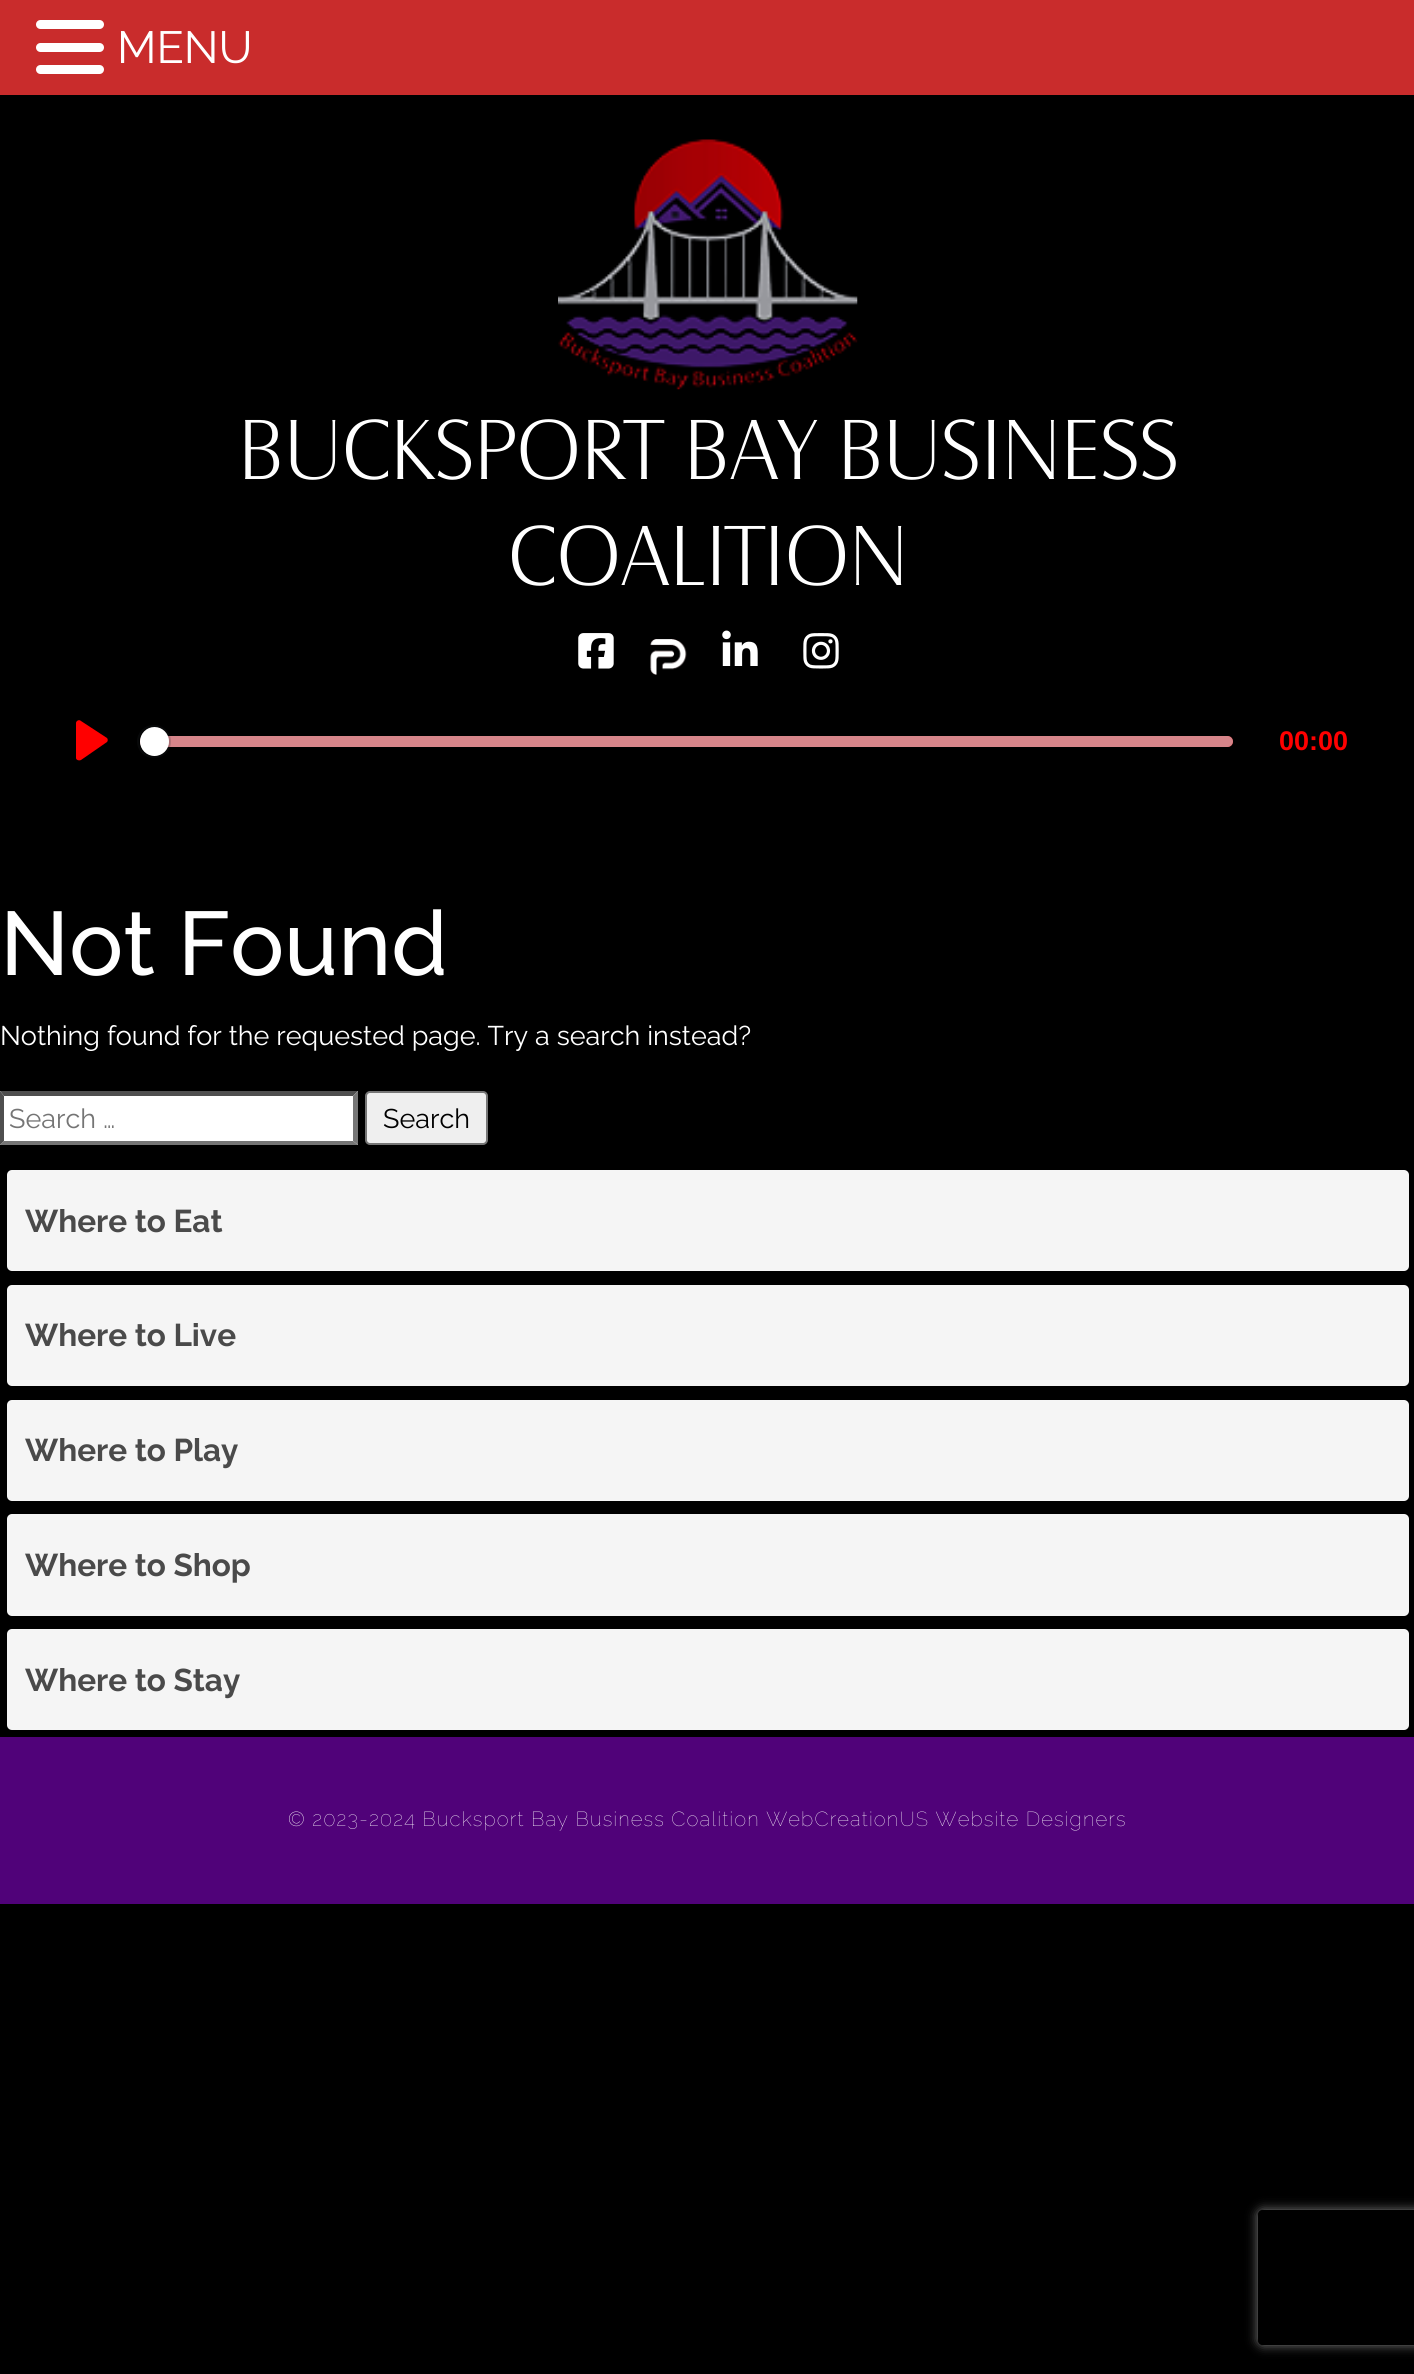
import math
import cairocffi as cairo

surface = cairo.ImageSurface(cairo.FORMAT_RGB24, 1414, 2374)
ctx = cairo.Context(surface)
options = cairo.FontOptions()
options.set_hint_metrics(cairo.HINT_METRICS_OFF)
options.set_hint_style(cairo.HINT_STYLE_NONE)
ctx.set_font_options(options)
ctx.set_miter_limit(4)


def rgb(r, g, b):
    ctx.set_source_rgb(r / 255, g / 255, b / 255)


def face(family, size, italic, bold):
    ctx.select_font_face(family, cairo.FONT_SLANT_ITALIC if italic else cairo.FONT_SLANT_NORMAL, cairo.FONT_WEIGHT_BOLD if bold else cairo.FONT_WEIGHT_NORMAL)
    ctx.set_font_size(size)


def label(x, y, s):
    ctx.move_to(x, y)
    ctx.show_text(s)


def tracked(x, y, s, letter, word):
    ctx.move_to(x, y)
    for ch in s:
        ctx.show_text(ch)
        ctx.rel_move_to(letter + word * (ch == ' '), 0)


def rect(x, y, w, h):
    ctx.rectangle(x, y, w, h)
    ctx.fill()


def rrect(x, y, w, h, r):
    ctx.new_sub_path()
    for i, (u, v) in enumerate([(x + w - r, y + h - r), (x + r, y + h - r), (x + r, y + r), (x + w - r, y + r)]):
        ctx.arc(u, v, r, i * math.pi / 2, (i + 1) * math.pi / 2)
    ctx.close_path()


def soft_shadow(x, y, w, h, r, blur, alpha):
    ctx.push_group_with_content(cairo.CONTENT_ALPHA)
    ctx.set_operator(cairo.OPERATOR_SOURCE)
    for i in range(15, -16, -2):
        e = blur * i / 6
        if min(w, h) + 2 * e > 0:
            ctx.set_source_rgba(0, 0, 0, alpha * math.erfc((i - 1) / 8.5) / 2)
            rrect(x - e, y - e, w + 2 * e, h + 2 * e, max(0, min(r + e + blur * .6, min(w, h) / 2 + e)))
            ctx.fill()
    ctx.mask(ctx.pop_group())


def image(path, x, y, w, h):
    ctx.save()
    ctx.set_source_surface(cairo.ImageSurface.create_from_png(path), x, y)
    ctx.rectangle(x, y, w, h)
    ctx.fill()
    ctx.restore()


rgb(0, 0, 0)
ctx.paint()
rgb(201, 44, 44)
rect(0, 0, 1414, 95)
rgb(255, 255, 255)
rrect(36, 20, 68, 9, 4.5)
ctx.fill()
rrect(36, 43, 68, 9, 4.5)
ctx.fill()
rrect(36, 65, 68, 9, 4.5)
ctx.fill()
face('Raleway', 45, 0, 0)
label(117, 63, 'MENU')
image('image0.png', 558, 139, 300, 251)
face('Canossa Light', 88.5, 0, 0)
label(238, 479, 'BUCKSPORT BAY BUSINESS')
label(508, 585, 'COALITION')
image('image1.png', 578, 633, 36, 36)
image('image2.png', 650, 639, 37, 36)
image('image3.png', 722, 630, 36, 36)
image('image4.png', 803, 633, 36, 36)
rgb(255, 0, 0)
ctx.new_path()
ctx.move_to(107, 738)
ctx.line_to(81, 721)
ctx.curve_to(79, 719, 76, 721, 76, 723)
ctx.line_to(76, 758)
ctx.curve_to(76, 760, 79, 761, 81, 760)
ctx.line_to(107, 742)
ctx.curve_to(108, 741, 108, 739, 107, 738)
ctx.close_path()
ctx.fill()
rrect(140, 736, 1093, 11, 5.5)
ctx.fill()
ctx.set_source_rgba(0.757, 0.788, 0.82, 0.66)
rrect(140, 736, 1093, 11, 5.5)
ctx.fill()
rrect(138, 726, 32, 31, 15.5)
ctx.set_source_rgba(0.137, 0.161, 0.184, 0.2)
ctx.stroke()
rgb(0, 0, 0)
soft_shadow(140, 729, 29, 29, 14.5, 1, 0.15)
rgb(255, 255, 255)
ctx.arc(154.5, 741.5, 14.5, 0, 2 * math.pi)
ctx.fill()
face('Liberation Sans', 27, 0, 1)
rgb(255, 0, 0)
label(1279, 750, '00:00')
face('Raleway Medium', 90, 0, 0)
rgb(255, 255, 255)
label(0, 975, 'Not Found')
face('Raleway', 27, 0, 0)
label(0, 1045, 'Nothing found for the requested page. Try a search instead?')
rect(0, 1091, 358, 54)
rgb(79, 79, 79)
ctx.new_path()
ctx.move_to(0, 1091)
ctx.line_to(358, 1091)
ctx.line_to(353, 1096)
ctx.line_to(4, 1096)
ctx.close_path()
ctx.fill()
rgb(118, 118, 118)
ctx.new_path()
ctx.move_to(358, 1091)
ctx.line_to(358, 1145)
ctx.line_to(353, 1141)
ctx.line_to(353, 1096)
ctx.close_path()
ctx.fill()
ctx.new_path()
ctx.move_to(358, 1145)
ctx.line_to(0, 1145)
ctx.line_to(4, 1141)
ctx.line_to(353, 1141)
ctx.close_path()
ctx.fill()
rgb(79, 79, 79)
ctx.new_path()
ctx.move_to(0, 1145)
ctx.line_to(0, 1091)
ctx.line_to(4, 1096)
ctx.line_to(4, 1141)
ctx.close_path()
ctx.fill()
rgb(117, 117, 117)
label(9, 1128, 'Search …')
rgb(239, 239, 239)
rrect(366, 1092, 121, 52, 4)
ctx.fill_preserve()
rgb(118, 118, 118)
ctx.stroke()
rgb(0, 0, 0)
label(383, 1128, 'Search')
rgb(245, 245, 245)
rrect(7, 1170, 1402, 101, 5)
ctx.fill()
face('Raleway', 31.5, 0, 1)
rgb(74, 74, 74)
label(25, 1232, 'Where to Eat')
rgb(245, 245, 245)
rrect(7, 1285, 1402, 101, 5)
ctx.fill()
rgb(74, 74, 74)
label(25, 1346, 'Where to Live')
rgb(245, 245, 245)
rrect(7, 1400, 1402, 101, 5)
ctx.fill()
rgb(74, 74, 74)
label(25, 1461, 'Where to Play')
rgb(245, 245, 245)
rrect(7, 1514, 1402, 102, 5)
ctx.fill()
rgb(74, 74, 74)
label(25, 1576, 'Where to Shop')
rgb(245, 245, 245)
rrect(7, 1629, 1402, 101, 5)
ctx.fill()
rgb(74, 74, 74)
label(25, 1691, 'Where to Stay')
rgb(80, 2, 121)
rect(0, 1737, 1414, 167)
face('Raleway Thin', 20.25, 0, 0)
rgb(255, 255, 255)
tracked(288, 1826, '© 2023-2024 Bucksport Bay Business Coalition WebCreationUS Website Designers', 1.12, 0)
ctx.save()
ctx.set_fill_rule(cairo.FILL_RULE_EVEN_ODD)
ctx.new_path()
ctx.move_to(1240, 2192)
ctx.line_to(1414, 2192)
ctx.line_to(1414, 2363)
ctx.line_to(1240, 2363)
ctx.close_path()
ctx.move_to(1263, 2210)
ctx.line_to(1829, 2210)
ctx.curve_to(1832, 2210, 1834, 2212, 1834, 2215)
ctx.line_to(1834, 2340)
ctx.curve_to(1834, 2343, 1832, 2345, 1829, 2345)
ctx.line_to(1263, 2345)
ctx.curve_to(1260, 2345, 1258, 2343, 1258, 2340)
ctx.line_to(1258, 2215)
ctx.curve_to(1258, 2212, 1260, 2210, 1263, 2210)
ctx.close_path()
ctx.clip()
rgb(128, 128, 128)
soft_shadow(1258, 2210, 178, 135, 5, 5.5, 1)
ctx.restore()
surface.write_to_png('render.png')
